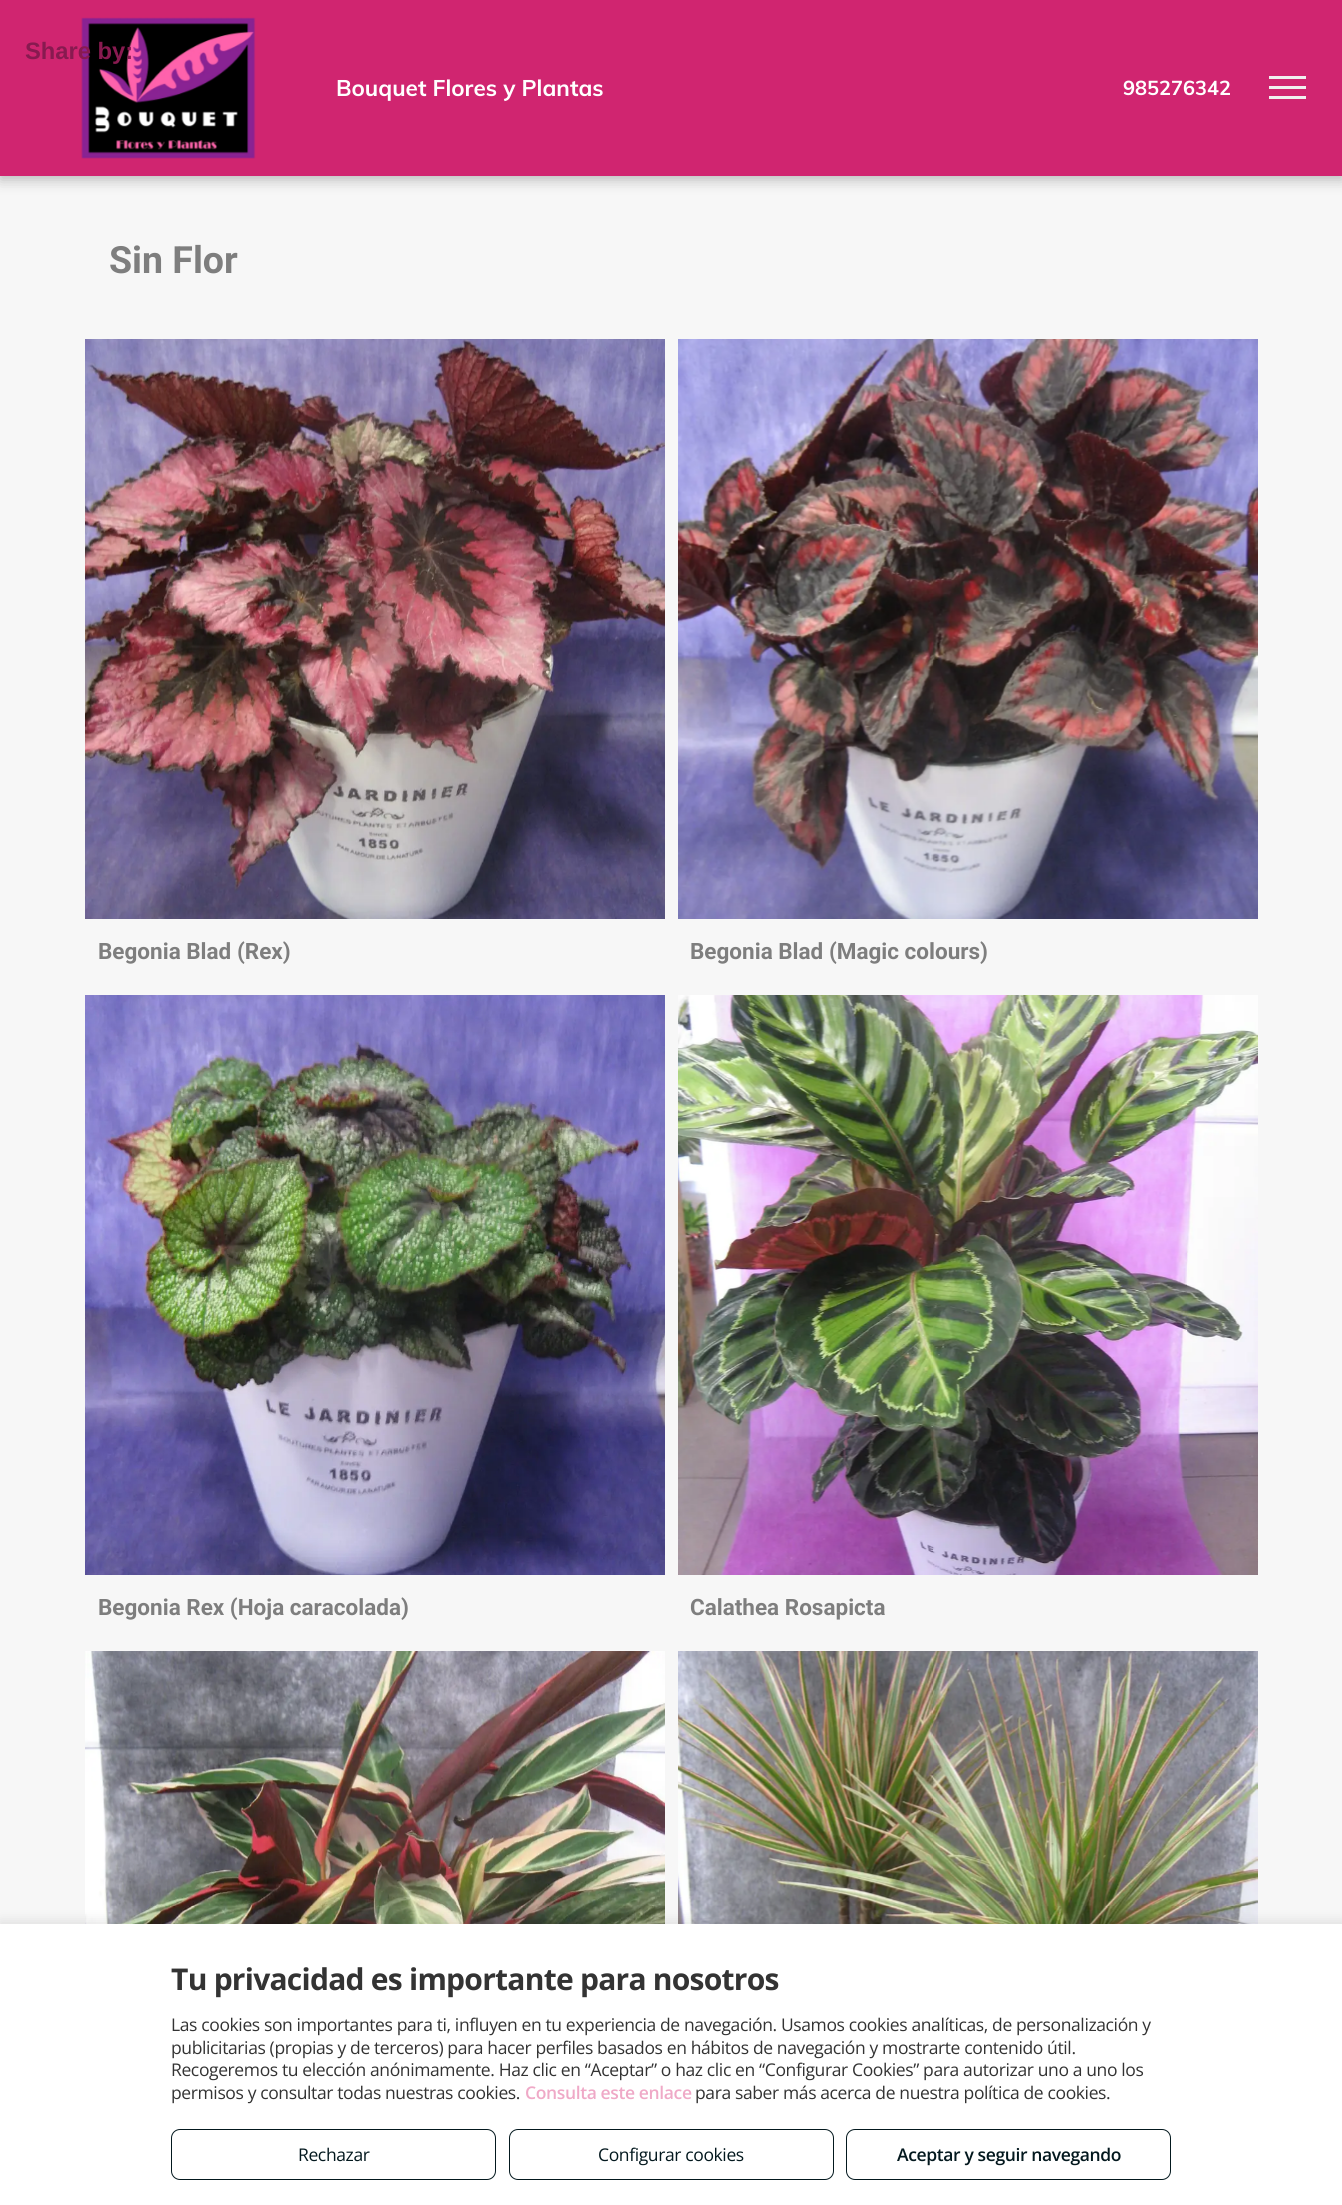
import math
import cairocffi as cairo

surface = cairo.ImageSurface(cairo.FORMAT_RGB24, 1342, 2205)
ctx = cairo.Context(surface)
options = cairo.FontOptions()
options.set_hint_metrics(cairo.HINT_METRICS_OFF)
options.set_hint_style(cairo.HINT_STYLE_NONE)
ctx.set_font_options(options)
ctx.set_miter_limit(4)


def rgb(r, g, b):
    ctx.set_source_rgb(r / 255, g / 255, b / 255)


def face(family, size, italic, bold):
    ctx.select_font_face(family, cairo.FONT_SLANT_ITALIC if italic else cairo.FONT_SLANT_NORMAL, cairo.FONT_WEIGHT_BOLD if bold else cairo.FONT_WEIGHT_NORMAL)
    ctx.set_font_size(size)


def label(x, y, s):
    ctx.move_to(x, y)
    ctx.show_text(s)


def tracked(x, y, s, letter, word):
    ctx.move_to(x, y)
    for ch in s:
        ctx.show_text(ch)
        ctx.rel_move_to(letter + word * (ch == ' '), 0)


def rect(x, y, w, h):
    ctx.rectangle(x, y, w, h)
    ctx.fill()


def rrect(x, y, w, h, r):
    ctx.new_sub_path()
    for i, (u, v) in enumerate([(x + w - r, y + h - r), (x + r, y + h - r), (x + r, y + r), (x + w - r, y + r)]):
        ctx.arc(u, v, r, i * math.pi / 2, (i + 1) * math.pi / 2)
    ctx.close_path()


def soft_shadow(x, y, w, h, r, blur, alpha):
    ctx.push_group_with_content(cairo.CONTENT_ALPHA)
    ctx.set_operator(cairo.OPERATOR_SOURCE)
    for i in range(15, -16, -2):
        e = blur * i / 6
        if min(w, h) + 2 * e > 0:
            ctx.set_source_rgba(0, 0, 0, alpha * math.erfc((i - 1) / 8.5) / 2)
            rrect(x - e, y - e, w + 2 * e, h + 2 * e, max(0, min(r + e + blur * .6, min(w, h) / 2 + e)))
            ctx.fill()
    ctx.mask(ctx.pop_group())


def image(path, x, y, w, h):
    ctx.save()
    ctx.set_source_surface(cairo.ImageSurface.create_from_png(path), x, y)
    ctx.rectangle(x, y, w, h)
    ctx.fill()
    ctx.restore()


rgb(247, 247, 247)
ctx.paint()
rgb(0, 0, 0)
soft_shadow(0, 4, 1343, 176, 0, 7, 0.25)
rgb(208, 37, 112)
rect(0, 0, 1342, 176)
image('image0.png', 81, 17, 175, 142)
face('Liberation Sans', 23.75, 0, 1)
rgb(136, 26, 80)
label(25, 59, 'Share by:')
face('Muli', 22.5, 0, 1)
rgb(255, 255, 255)
label(336, 96, 'Bouquet Flores y Plantas')
face('Muli', 20, 0, 1)
label(1123, 95, '985276342')
rgb(240, 240, 240)
rect(1269, 76, 37, 3)
rect(1269, 86, 37, 3)
rect(1269, 96, 37, 3)
face('Roboto', 37.5, 0, 1)
rgb(126, 126, 126)
label(109, 273, 'Sin Flor')
image('image1.png', 85, 339, 580, 580)
face('Roboto', 22.5, 0, 1)
label(98, 959, 'Begonia Blad (Rex)')
image('image2.png', 678, 339, 580, 580)
label(690, 959, 'Begonia Blad (Magic colours)')
image('image3.png', 85, 995, 580, 580)
label(98, 1615, 'Begonia Rex (Hoja caracolada)')
image('image4.png', 678, 995, 580, 580)
label(690, 1615, 'Calathea Rosapicta')
image('image5.png', 85, 1651, 580, 273)
image('image6.png', 678, 1651, 580, 273)
rgb(0, 0, 0)
soft_shadow(0, 1921, 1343, 282, 0, 6, 0.1)
rgb(255, 255, 255)
rect(0, 1924, 1342, 281)
face('Open Sans', 30, 0, 1)
rgb(51, 51, 51)
tracked(171, 1990, 'Tu privacidad es importante para nosotros', -0.75, 0)
face('Open Sans', 17.5, 0, 0)
tracked(171, 2031, 'Las cookies son importantes para ti, influyen en tu experiencia de navegación. Usamos cookies analíticas, de personalización y', -0.38, 0)
tracked(171, 2054, 'publicitarias (propias y de terceros) para hacer perfiles basados en hábitos de navegación y mostrarte contenido útil.', -0.38, 0)
tracked(171, 2076, 'Recogeremos tu elección anónimamente. Haz clic en “Aceptar” o haz clic en “Configurar Cookies” para autorizar uno a uno los', -0.38, 0)
tracked(171, 2099, 'permisos y consultar todas nuestras cookies.', -0.38, 0)
face('Open Sans SemiBold', 17.5, 0, 0)
rgb(239, 169, 199)
tracked(525, 2099, 'Consulta este enlace', -0.38, 0)
face('Open Sans', 17.5, 0, 0)
rgb(51, 51, 51)
tracked(695, 2099, 'para saber más acerca de nuestra política de cookies.', -0.38, 0)
rrect(171.5, 2129.5, 324, 50, 8.5)
rgb(3, 24, 30)
ctx.set_line_width(1)
ctx.stroke()
tracked(298, 2161, 'Rechazar', -0.38, 0)
rrect(509.5, 2129.5, 324, 50, 8.5)
ctx.stroke()
tracked(598, 2161, 'Configurar cookies', -0.38, 0)
rrect(846.5, 2129.5, 324, 50, 8.5)
ctx.stroke()
face('Open Sans SemiBold', 17.5, 0, 0)
tracked(897, 2161, 'Aceptar y seguir navegando', -0.38, 0)
surface.write_to_png('render.png')
